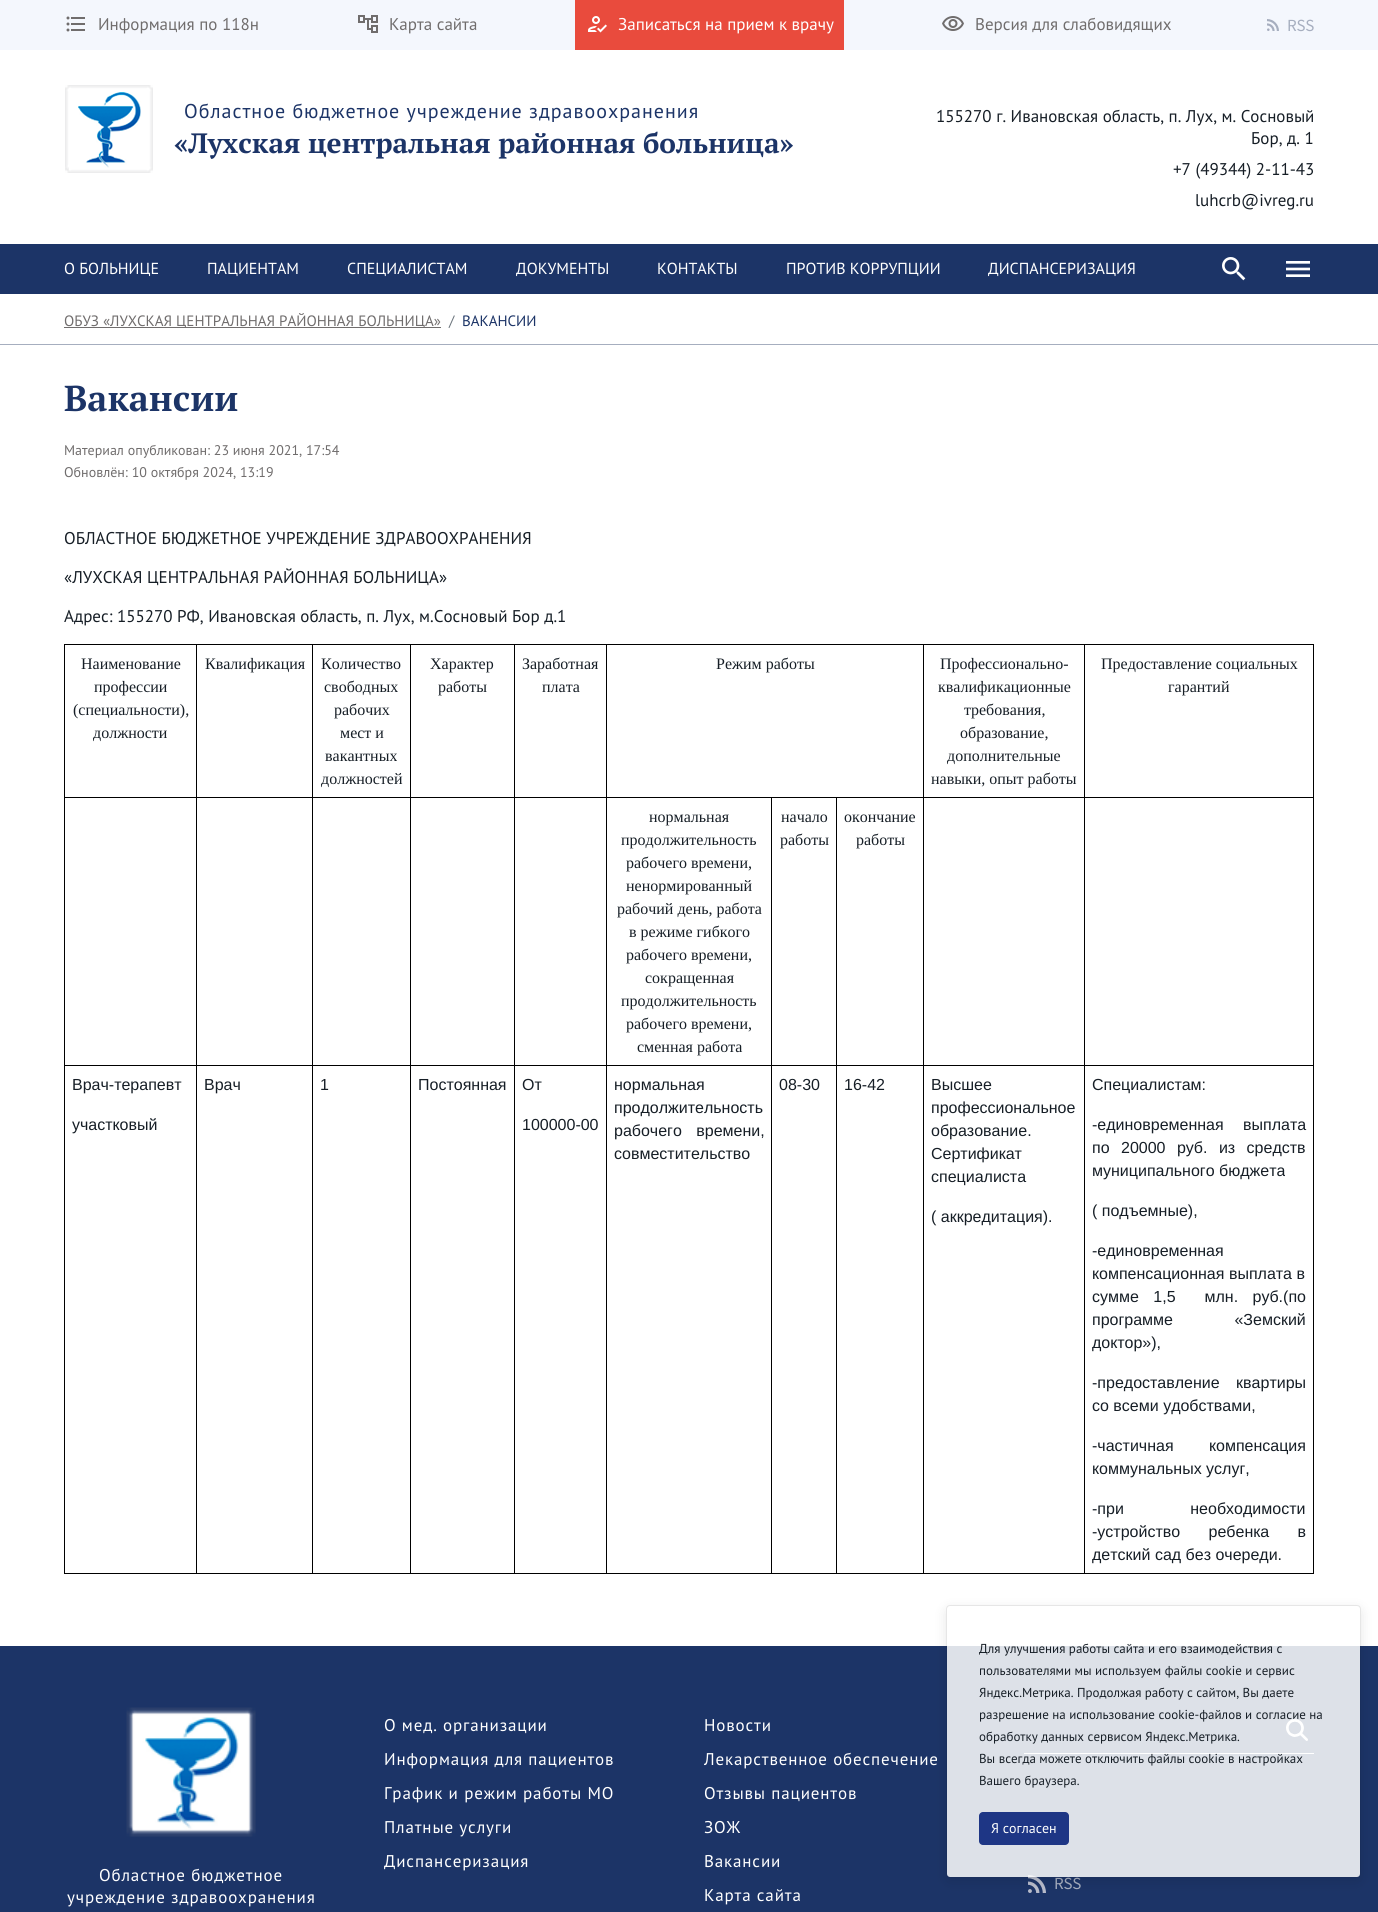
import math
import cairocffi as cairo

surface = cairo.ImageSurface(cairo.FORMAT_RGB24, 1378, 1912)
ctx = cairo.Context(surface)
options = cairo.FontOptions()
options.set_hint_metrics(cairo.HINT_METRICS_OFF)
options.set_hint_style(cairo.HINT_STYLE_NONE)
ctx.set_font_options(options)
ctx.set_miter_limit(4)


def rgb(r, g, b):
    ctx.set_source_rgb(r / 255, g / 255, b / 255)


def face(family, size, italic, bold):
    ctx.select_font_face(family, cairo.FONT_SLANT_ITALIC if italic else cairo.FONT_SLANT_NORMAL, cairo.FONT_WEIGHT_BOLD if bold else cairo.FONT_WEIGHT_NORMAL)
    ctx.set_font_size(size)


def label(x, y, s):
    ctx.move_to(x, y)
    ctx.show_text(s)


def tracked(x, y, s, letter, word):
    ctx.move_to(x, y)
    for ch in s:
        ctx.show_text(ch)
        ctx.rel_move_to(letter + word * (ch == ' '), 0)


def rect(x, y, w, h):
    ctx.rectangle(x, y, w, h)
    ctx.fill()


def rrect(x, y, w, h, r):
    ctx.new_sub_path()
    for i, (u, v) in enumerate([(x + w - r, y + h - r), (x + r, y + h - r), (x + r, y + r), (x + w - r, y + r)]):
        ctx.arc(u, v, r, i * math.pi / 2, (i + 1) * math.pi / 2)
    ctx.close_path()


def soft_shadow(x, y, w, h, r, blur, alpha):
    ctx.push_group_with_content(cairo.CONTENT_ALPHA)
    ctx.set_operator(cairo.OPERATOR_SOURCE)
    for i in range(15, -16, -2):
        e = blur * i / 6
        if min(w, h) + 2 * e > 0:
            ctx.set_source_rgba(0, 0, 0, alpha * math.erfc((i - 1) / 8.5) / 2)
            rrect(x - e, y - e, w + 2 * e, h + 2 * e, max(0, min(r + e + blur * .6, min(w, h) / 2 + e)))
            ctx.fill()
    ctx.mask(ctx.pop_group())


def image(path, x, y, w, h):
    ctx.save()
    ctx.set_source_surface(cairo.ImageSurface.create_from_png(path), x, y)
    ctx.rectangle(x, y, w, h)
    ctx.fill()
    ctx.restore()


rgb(255, 255, 255)
ctx.paint()
rgb(244, 247, 253)
rect(0, 0, 1378, 50)
image('image0.png', 66, 16, 19, 16)
face('PT Sans', 17, 0, 0)
rgb(112, 109, 109)
label(98, 30, 'Информация по 118н')
image('image1.png', 358, 15, 20, 18)
label(389, 30, 'Карта сайта')
rgb(233, 75, 61)
rect(575, 0, 269, 50)
image('image2.png', 588, 16, 19, 17)
rgb(255, 255, 255)
label(618, 30, 'Записаться на прием к врачу')
image('image3.png', 942, 16, 22, 15)
rgb(112, 109, 109)
label(975, 30, 'Версия для слабовидящих')
image('image4.png', 1267, 19, 12, 12)
image('image5.png', 1288, 19, 26, 13)
image('image6.png', 65, 85, 88, 88)
face('PT Sans', 20, 0, 0)
rgb(28, 52, 103)
tracked(184, 118, 'Областное бюджетное учреждение здравоохранения', 1, 0)
face('PT Serif', 28, 0, 1)
label(174, 153, '«Лухская центральная районная больница»')
face('PT Sans', 17, 0, 0)
rgb(22, 30, 38)
label(936, 122, '155270 г. Ивановская область, п. Лух, м. Сосновый')
label(1251, 144, 'Бор, д. 1')
label(1173, 175, '+7 (49344) 2-11-43')
label(1195, 206, 'luhcrb@ivreg.ru')
rgb(28, 52, 103)
rect(0, 244, 1378, 50)
face('PT Sans', 16, 0, 0)
rgb(255, 255, 255)
label(64, 274, 'О БОЛЬНИЦЕ')
label(207, 274, 'ПАЦИЕНТАМ')
label(347, 274, 'СПЕЦИАЛИСТАМ')
ctx.save()
ctx.rectangle(516, 258, 93, 21)
ctx.clip()
label(516, 274, 'ДОКУМЕНТЫ')
ctx.restore()
label(657, 274, 'КОНТАКТЫ')
label(786, 274, 'ПРОТИВ КОРРУПЦИИ')
label(988, 274, 'ДИСПАНСЕРИЗАЦИЯ')
image('image7.png', 1222, 257, 24, 24)
image('image8.png', 1286, 261, 24, 16)
rgb(166, 174, 191)
rect(0, 344, 1378, 1)
rgb(112, 109, 109)
rect(64, 327, 377, 1)
face('PT Sans', 15, 0, 0)
label(64, 326, 'ОБУЗ «ЛУХСКАЯ ЦЕНТРАЛЬНАЯ РАЙОННАЯ БОЛЬНИЦА»')
rgb(108, 117, 125)
label(449, 326, '/')
rgb(28, 52, 103)
label(462, 326, 'ВАКАНСИИ')
face('PT Serif', 36, 0, 1)
label(64, 411, 'Вакансии')
face('PT Sans', 14, 0, 0)
rgb(112, 109, 109)
label(64, 455, 'Материал опубликован: 23 июня 2021, 17:54')
label(64, 477, 'Обновлён: 10 октября 2024, 13:19')
face('PT Sans', 17, 0, 0)
rgb(22, 30, 38)
label(64, 544, 'ОБЛАСТНОЕ БЮДЖЕТНОЕ УЧРЕЖДЕНИЕ ЗДРАВООХРАНЕНИЯ')
label(64, 583, '«ЛУХСКАЯ ЦЕНТРАЛЬНАЯ РАЙОННАЯ БОЛЬНИЦА»')
label(64, 622, 'Адрес: 155270 РФ, Ивановская область, п. Лух, м.Сосновый Бор д.1')
rgb(0, 0, 0)
rect(64, 644, 1250, 1)
rect(1313, 644, 1, 930)
rect(64, 1573, 1250, 1)
rect(64, 644, 1, 930)
face('Liberation Serif', 16, 0, 0)
rgb(22, 30, 38)
label(81, 669, 'Наименование')
label(94, 692, 'профессии')
label(73, 715, '(специальности),')
label(93, 738, 'должности')
rgb(0, 0, 0)
rect(1084, 797, 230, 1)
rect(1084, 1065, 230, 1)
rect(1084, 1065, 1, 509)
rect(923, 1065, 162, 1)
rect(1084, 797, 1, 269)
rect(923, 797, 162, 1)
rect(923, 1065, 1, 509)
rect(836, 1065, 88, 1)
rect(923, 797, 1, 269)
rect(836, 797, 88, 1)
rect(836, 1065, 1, 509)
rect(771, 1065, 66, 1)
rect(836, 797, 1, 269)
rect(771, 797, 66, 1)
rect(771, 1065, 1, 509)
rect(606, 1065, 166, 1)
rect(771, 797, 1, 269)
rect(606, 797, 166, 1)
rect(606, 1065, 1, 509)
rect(514, 1065, 93, 1)
rect(606, 797, 1, 269)
rect(514, 797, 93, 1)
rect(514, 1065, 1, 509)
rect(410, 1065, 105, 1)
rect(514, 797, 1, 269)
rect(410, 797, 105, 1)
rect(410, 1065, 1, 509)
rect(312, 1065, 99, 1)
rect(410, 797, 1, 269)
rect(312, 797, 99, 1)
rect(312, 1065, 1, 509)
rect(196, 1065, 117, 1)
rect(312, 797, 1, 269)
rect(196, 797, 117, 1)
rect(196, 1065, 1, 509)
rect(64, 1065, 133, 1)
rect(196, 797, 1, 269)
rect(64, 797, 133, 1)
rect(196, 644, 1, 154)
rgb(22, 30, 38)
label(205, 669, 'Квалификация')
rgb(0, 0, 0)
rect(312, 644, 1, 154)
rgb(22, 30, 38)
label(321, 669, 'Количество')
label(324, 692, 'свободных')
label(334, 715, 'рабочих')
label(340, 738, 'мест и')
label(325, 761, 'вакантных')
label(321, 784, 'должностей')
rgb(0, 0, 0)
rect(410, 644, 1, 154)
rgb(22, 30, 38)
label(430, 669, 'Характер')
label(438, 692, 'работы')
rgb(0, 0, 0)
rect(514, 644, 1, 154)
rgb(22, 30, 38)
label(522, 669, 'Заработная')
label(542, 692, 'плата')
rgb(0, 0, 0)
rect(606, 644, 1, 154)
rgb(22, 30, 38)
label(716, 669, 'Режим работы')
rgb(0, 0, 0)
rect(923, 644, 1, 154)
rgb(22, 30, 38)
label(940, 669, 'Профессионально-')
label(938, 692, 'квалификационные')
label(964, 715, 'требования,')
label(960, 738, 'образование,')
label(947, 761, 'дополнительные')
label(931, 784, 'навыки, опыт работы')
rgb(0, 0, 0)
rect(1084, 644, 1, 154)
rgb(22, 30, 38)
label(1101, 669, 'Предоставление социальных')
label(1168, 692, 'гарантий')
label(649, 822, 'нормальная')
label(621, 845, 'продолжительность')
label(626, 868, 'рабочего времени,')
label(626, 891, 'ненормированный')
label(617, 914, 'рабочий день, работа')
label(629, 937, 'в режиме гибкого')
label(626, 960, 'рабочего времени,')
label(645, 983, 'сокращенная')
label(621, 1006, 'продолжительность')
label(626, 1029, 'рабочего времени,')
label(637, 1052, 'сменная работа')
label(781, 822, 'начало')
label(780, 845, 'работы')
label(844, 822, 'окончание')
label(856, 845, 'работы')
face('Liberation Sans', 16, 0, 0)
label(72, 1090, 'Врач-терапевт')
label(72, 1130, 'участковый')
label(204, 1090, 'Врач')
label(320, 1090, '1')
label(418, 1090, 'Постоянная')
label(522, 1090, 'От')
label(522, 1130, '100000-00')
label(614, 1090, 'нормальная')
label(614, 1113, 'продолжительность')
tracked(614, 1136, 'рабочего времени,', 0, 10)
label(614, 1159, 'совместительство')
label(779, 1090, '08-30')
label(844, 1090, '16-42')
label(931, 1090, 'Высшее')
label(931, 1113, 'профессиональное')
label(931, 1136, 'образование.')
label(931, 1159, 'Сертификат')
label(931, 1182, 'специалиста')
label(931, 1222, '( аккредитация).')
label(1092, 1090, 'Специалистам:')
tracked(1092, 1130, '-единовременная выплата', 0, 15)
tracked(1092, 1153, 'по 20000 руб. из средств', 0, 7)
label(1092, 1176, 'муниципального бюджета')
label(1092, 1216, '( подъемные),')
label(1092, 1256, '-единовременная')
label(1092, 1279, 'компенсационная выплата в')
tracked(1092, 1302, 'сумме 1,5  млн. руб.(по', 0, 10)
tracked(1092, 1325, 'программе «Земский', 0, 57)
label(1092, 1348, 'доктор»),')
tracked(1092, 1388, '-предоставление квартиры', 0, 12)
label(1092, 1411, 'со всеми удобствами,')
tracked(1092, 1451, '-частичная компенсация', 0, 31)
label(1092, 1474, 'коммунальных услуг,')
tracked(1092, 1514, '-при необходимости', 0, 62)
tracked(1092, 1537, '-устройство ребенка в', 0, 24)
label(1092, 1560, 'детский сад без очереди.')
rgb(28, 52, 103)
rect(0, 1646, 1378, 266)
image('image9.png', 126, 1707, 130, 130)
face('PT Sans', 17, 0, 0)
rgb(255, 255, 255)
tracked(99, 1881, 'Областное бюджетное', 0.85, 0)
tracked(67, 1903, 'учреждение здравоохранения', 0.85, 0)
tracked(384, 1731, 'О мед. организации', 0.85, 0)
tracked(384, 1765, 'Информация для пациентов', 0.85, 0)
tracked(384, 1799, 'График и режим работы МО', 0.85, 0)
tracked(384, 1833, 'Платные услуги', 0.85, 0)
tracked(384, 1867, 'Диспансеризация', 0.85, 0)
tracked(704, 1731, 'Новости', 0.85, 0)
tracked(704, 1765, 'Лекарственное обеспечение', 0.85, 0)
tracked(704, 1799, 'Отзывы пациентов', 0.85, 0)
tracked(704, 1833, 'ЗОЖ', 0.85, 0)
tracked(704, 1867, 'Вакансии', 0.85, 0)
tracked(704, 1901, 'Карта сайта', 0.85, 0)
rect(1024, 1753, 290, 1)
image('image11.png', 1028, 1875, 18, 18)
image('image12.png', 1055, 1877, 26, 13)
ctx.save()
ctx.set_fill_rule(cairo.FILL_RULE_EVEN_ODD)
ctx.new_path()
ctx.move_to(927, 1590)
ctx.line_to(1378, 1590)
ctx.line_to(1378, 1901)
ctx.line_to(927, 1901)
ctx.close_path()
ctx.move_to(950, 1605)
ctx.line_to(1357, 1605)
ctx.curve_to(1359, 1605, 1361, 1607, 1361, 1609)
ctx.line_to(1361, 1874)
ctx.curve_to(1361, 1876, 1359, 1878, 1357, 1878)
ctx.line_to(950, 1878)
ctx.curve_to(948, 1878, 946, 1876, 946, 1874)
ctx.line_to(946, 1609)
ctx.curve_to(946, 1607, 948, 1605, 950, 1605)
ctx.close_path()
ctx.clip()
rgb(0, 0, 0)
soft_shadow(946, 1609, 415, 273, 4, 6, 0.1)
ctx.restore()
ctx.set_source_rgba(1, 1, 1, 0.85)
rrect(947, 1606, 413, 271, 3)
ctx.fill()
rrect(946.5, 1605.5, 414, 272, 3.5)
ctx.set_source_rgba(0, 0, 0, 0.1)
ctx.set_line_width(1)
ctx.stroke()
face('PT Sans', 13, 0, 0)
rgb(22, 30, 38)
label(979, 1719, 'разрешение на использование cookie-файлов и согласие на')
image('image10.png', 1286, 1719, 22, 22)
label(979, 1653, 'Для улучшения работы сайта и его взаимодействия с')
label(979, 1675, 'пользователями мы используем файлы cookie и сервис')
label(979, 1697, 'Яндекс.Метрика. Продолжая работу с сайтом, Вы даете')
label(979, 1741, 'обработку данных сервисом Яндекс.Метрика.')
label(979, 1763, 'Вы всегда можете отключить файлы cookie в настройках')
label(979, 1785, 'Вашего браузера.')
rgb(30, 54, 133)
rrect(979, 1812, 90, 33, 4)
ctx.fill()
face('PT Sans', 14, 0, 0)
rgb(255, 255, 255)
label(991, 1833, 'Я согласен')
surface.write_to_png('render.png')
